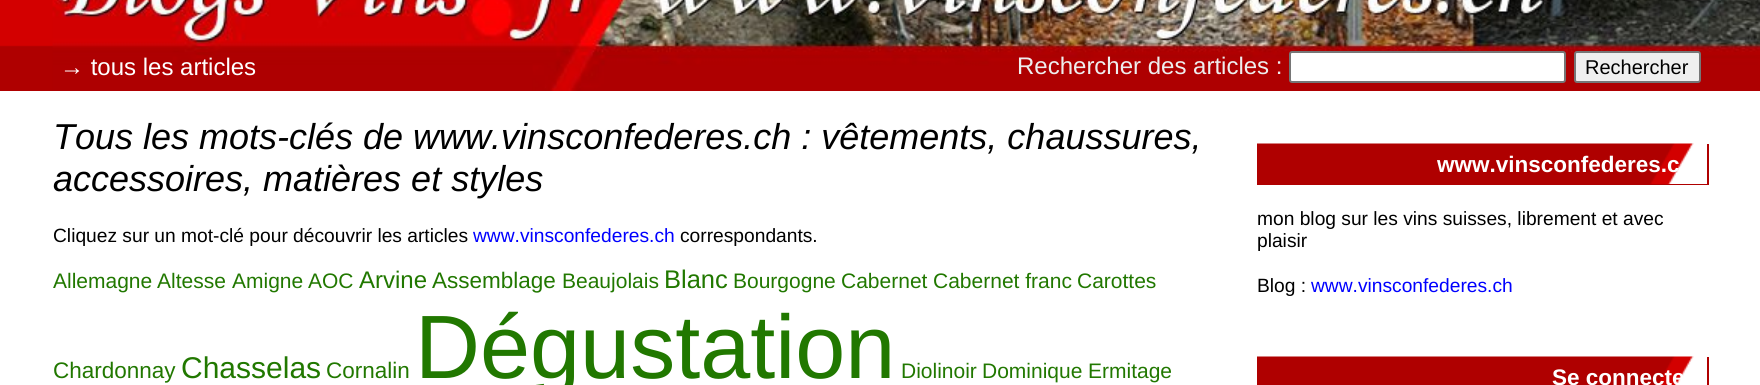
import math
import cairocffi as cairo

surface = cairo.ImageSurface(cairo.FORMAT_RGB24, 1760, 385)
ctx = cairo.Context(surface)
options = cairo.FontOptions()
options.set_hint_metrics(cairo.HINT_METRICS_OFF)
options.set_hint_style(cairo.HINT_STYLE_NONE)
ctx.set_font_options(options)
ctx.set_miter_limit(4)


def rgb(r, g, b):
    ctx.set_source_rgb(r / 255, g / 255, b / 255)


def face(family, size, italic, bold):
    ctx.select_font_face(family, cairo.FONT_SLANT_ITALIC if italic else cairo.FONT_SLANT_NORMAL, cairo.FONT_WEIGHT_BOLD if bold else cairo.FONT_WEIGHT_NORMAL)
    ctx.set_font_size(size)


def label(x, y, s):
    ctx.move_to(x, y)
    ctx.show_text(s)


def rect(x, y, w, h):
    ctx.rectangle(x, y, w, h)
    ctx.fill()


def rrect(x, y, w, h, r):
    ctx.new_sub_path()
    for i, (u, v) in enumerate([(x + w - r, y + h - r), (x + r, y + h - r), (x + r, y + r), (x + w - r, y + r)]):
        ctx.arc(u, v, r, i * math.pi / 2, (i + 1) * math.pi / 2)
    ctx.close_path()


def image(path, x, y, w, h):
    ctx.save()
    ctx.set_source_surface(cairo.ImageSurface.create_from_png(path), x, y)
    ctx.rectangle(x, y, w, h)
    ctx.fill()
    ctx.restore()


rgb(255, 255, 255)
ctx.paint()
image('image0.png', 0, 0, 53, 91)
image('image1.png', 52, 0, 1708, 91)
face('Liberation Sans', 24, 0, 0)
rgb(255, 255, 255)
label(60, 75, '→ tous les articles')
rgb(238, 238, 238)
label(1017, 74, 'Rechercher des articles :')
rgb(255, 255, 255)
rrect(1290, 52, 275, 30, 2)
ctx.fill_preserve()
rgb(118, 118, 118)
ctx.stroke()
rgb(239, 239, 239)
rrect(1575, 52, 125, 30, 2)
ctx.fill_preserve()
rgb(118, 118, 118)
ctx.stroke()
face('Liberation Sans', 20, 0, 0)
rgb(0, 0, 0)
label(1585, 74, 'Rechercher')
face('Liberation Sans', 36, 1, 0)
label(53, 149, 'Tous les mots-clés de www.vinsconfederes.ch : vêtements, chaussures,')
label(53, 191, 'accessoires, matières et styles')
face('Liberation Sans', 19.2, 0, 0)
label(53, 242, 'Cliquez sur un mot-clé pour découvrir les articles')
rgb(0, 0, 255)
label(473, 242, 'www.vinsconfederes.ch')
rgb(0, 0, 0)
label(680, 242, 'correspondants.')
face('Liberation Sans', 21, 0, 0)
rgb(33, 120, 0)
label(53, 288, 'Allemagne')
label(157, 288, 'Altesse')
label(232, 288, 'Amigne')
label(308, 288, 'AOC')
face('Liberation Sans', 24, 0, 0)
label(359, 288, 'Arvine')
face('Liberation Sans', 22.5, 0, 0)
label(432, 288, 'Assemblage')
face('Liberation Sans', 21, 0, 0)
label(562, 288, 'Beaujolais')
face('Liberation Sans', 25.5, 0, 0)
label(664, 288, 'Blanc')
face('Liberation Sans', 21, 0, 0)
label(733, 288, 'Bourgogne')
label(841, 288, 'Cabernet')
label(933, 288, 'Cabernet franc')
label(1077, 288, 'Carottes')
face('Liberation Sans', 22.5, 0, 0)
label(53, 378, 'Chardonnay')
face('Liberation Sans', 30, 0, 0)
label(181, 378, 'Chasselas')
face('Liberation Sans', 22.5, 0, 0)
label(326, 378, 'Cornalin')
face('Liberation Sans', 90, 0, 0)
label(415, 378, 'Dégustation')
face('Liberation Sans', 21, 0, 0)
label(901, 378, 'Diolinoir')
label(982, 378, 'Dominique')
label(1088, 378, 'Ermitage')
rgb(175, 0, 0)
rect(1257, 144, 452, 41)
image('image2.png', 1257, 143, 450, 41)
face('Liberation Sans', 22.5, 0, 1)
rgb(255, 255, 255)
label(1437, 172, 'www.vinsconfederes.c')
face('Liberation Sans', 19.2, 0, 0)
rgb(0, 0, 0)
label(1257, 225, 'mon blog sur les vins suisses, librement et avec')
label(1257, 247, 'plaisir')
label(1257, 292, 'Blog :')
rgb(0, 0, 255)
label(1311, 292, 'www.vinsconfederes.ch')
rgb(175, 0, 0)
rect(1707, 357, 2, 28)
image('image3.png', 1257, 356, 450, 29)
face('Liberation Sans', 22.5, 0, 1)
rgb(255, 255, 255)
label(1552, 385, 'Se connecte')
surface.write_to_png('render.png')
